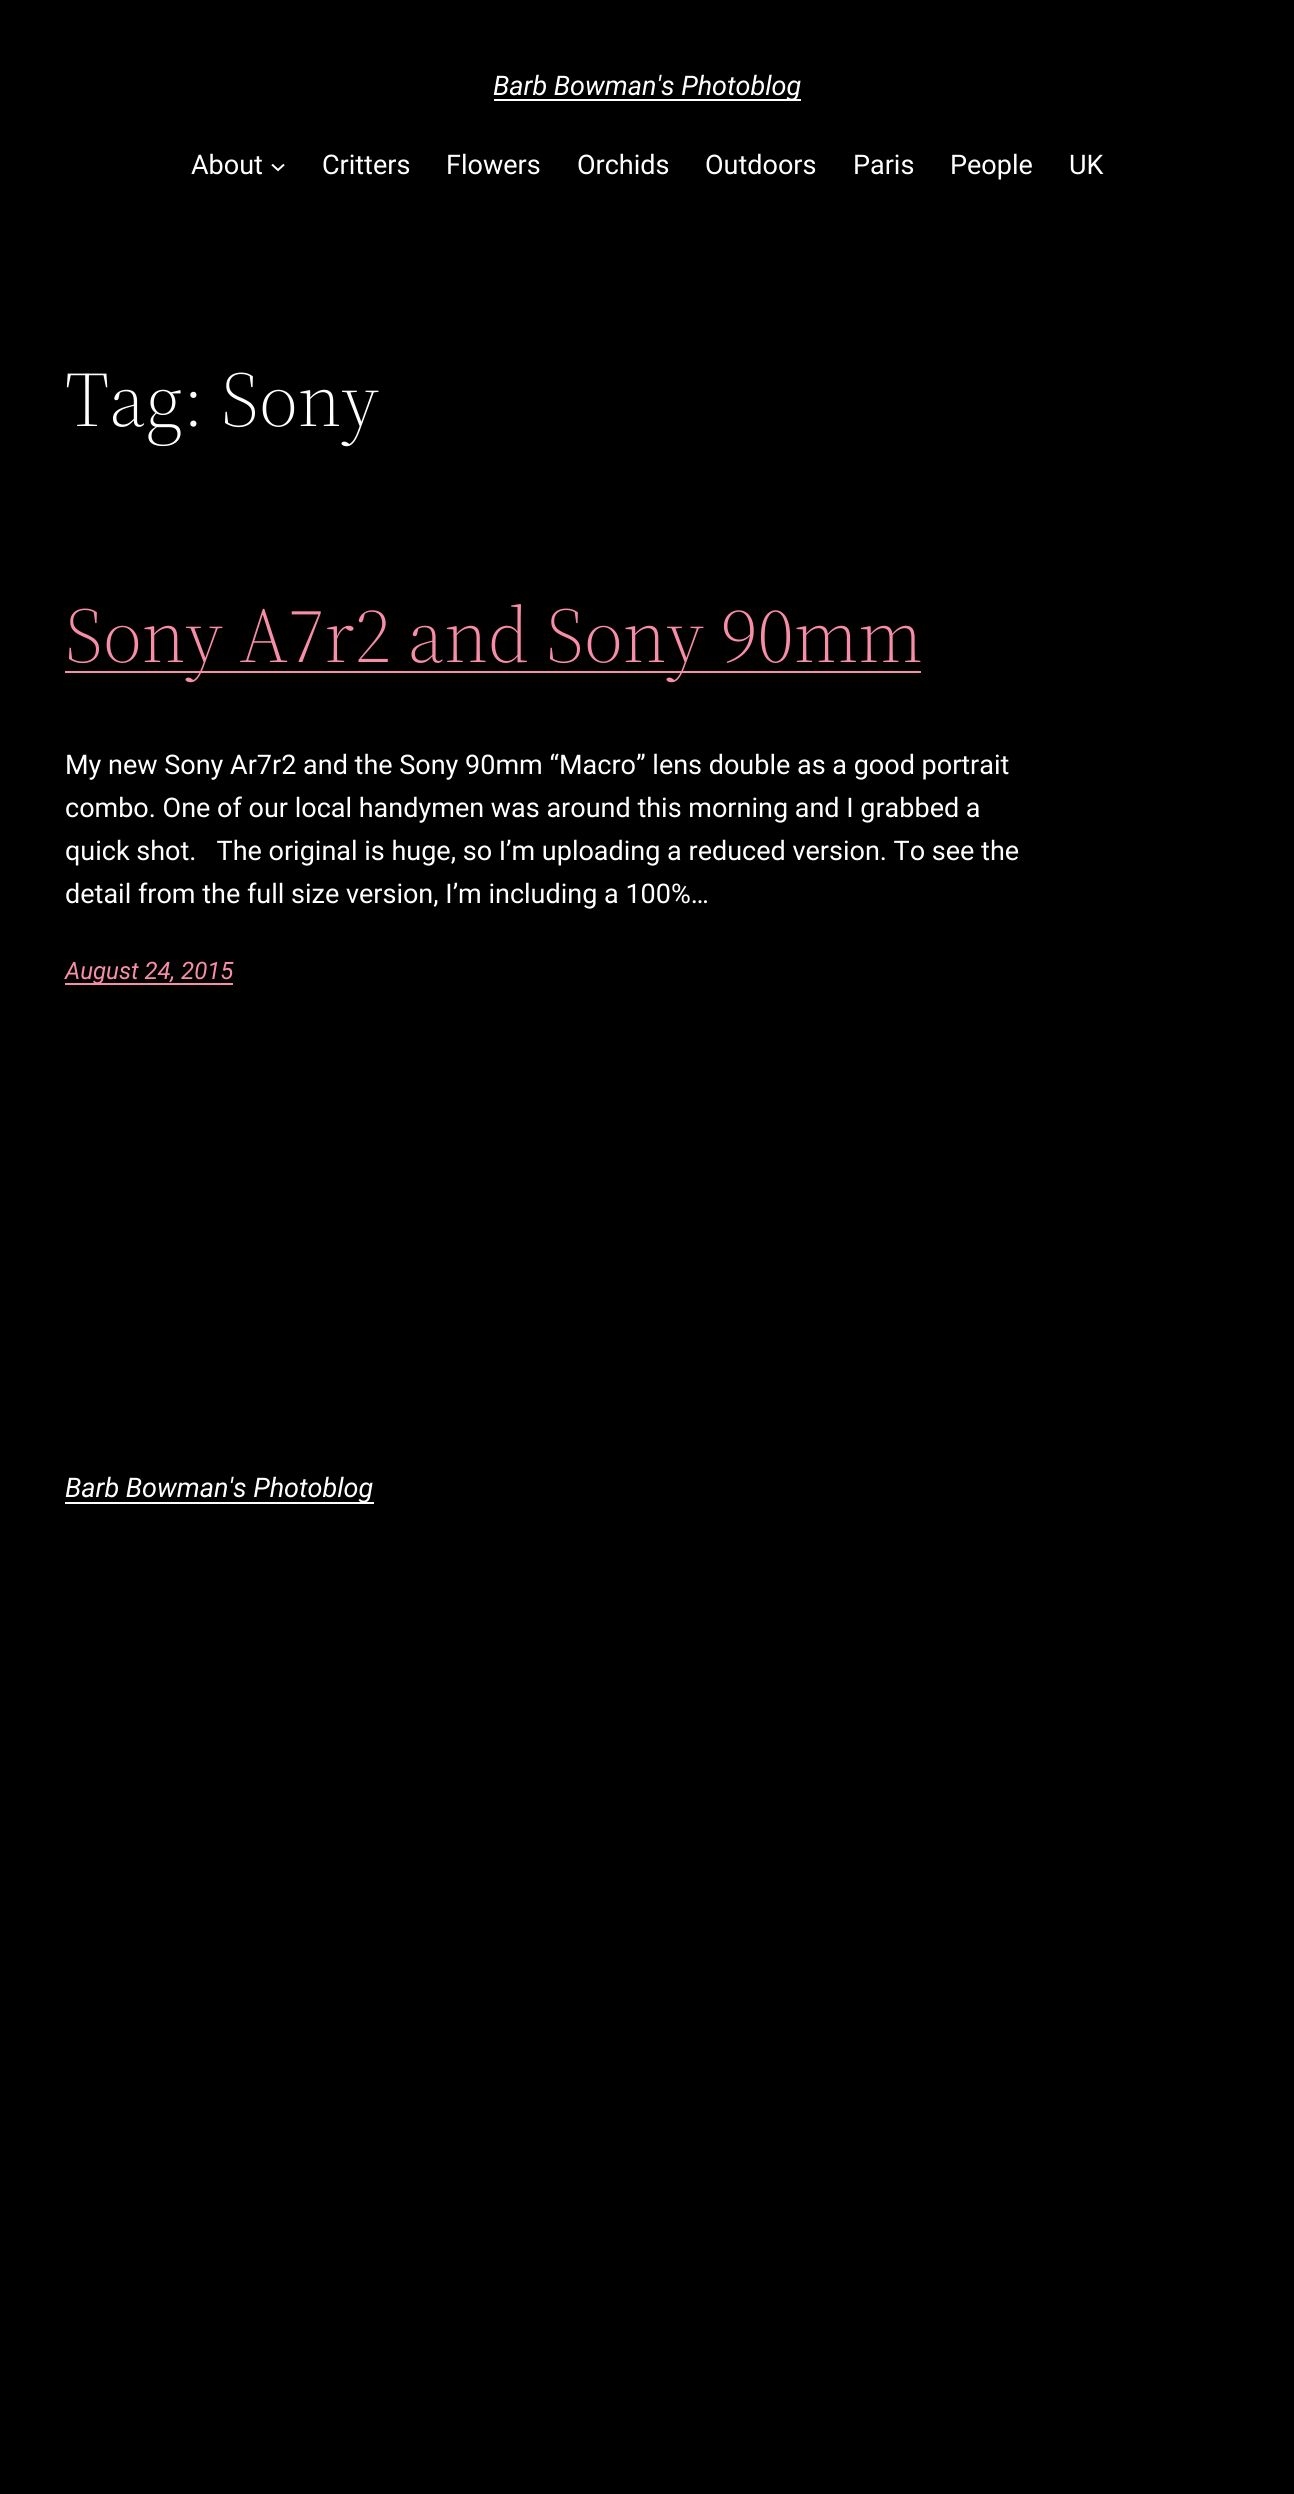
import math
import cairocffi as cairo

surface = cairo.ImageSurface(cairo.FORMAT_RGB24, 1294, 2494)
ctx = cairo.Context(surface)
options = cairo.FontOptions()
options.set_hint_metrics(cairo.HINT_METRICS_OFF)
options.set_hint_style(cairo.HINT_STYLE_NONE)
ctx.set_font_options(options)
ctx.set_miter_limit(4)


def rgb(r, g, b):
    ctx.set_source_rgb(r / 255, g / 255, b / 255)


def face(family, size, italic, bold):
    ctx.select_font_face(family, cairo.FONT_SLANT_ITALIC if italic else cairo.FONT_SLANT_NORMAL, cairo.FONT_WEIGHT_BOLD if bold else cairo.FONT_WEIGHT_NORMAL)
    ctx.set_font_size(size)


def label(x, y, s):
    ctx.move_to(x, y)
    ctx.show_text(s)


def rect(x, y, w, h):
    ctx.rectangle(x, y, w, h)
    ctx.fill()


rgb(0, 0, 0)
ctx.paint()
rgb(255, 255, 255)
rect(494, 99, 307, 2)
face('Roboto', 27, 1, 0)
label(493, 95, 'Barb Bowman\'s Photoblog')
face('Roboto', 27, 0, 0)
label(191, 174, 'About')
ctx.new_path()
ctx.move_to(272, 164.5)
ctx.line_to(278, 170)
ctx.line_to(284, 164.5)
ctx.stroke()
label(322, 174, 'Critters')
label(446, 174, 'Flowers')
label(577, 174, 'Orchids')
label(705, 174, 'Outdoors')
label(853, 174, 'Paris')
label(950, 174, 'People')
label(1069, 174, 'UK')
face('Source Serif 4 Light', 77.75, 0, 0)
label(65, 426, 'Tag: Sony')
rgb(247, 141, 167)
rect(65, 671, 856, 2)
label(65, 662, 'Sony A7r2 and Sony 90mm')
face('Roboto', 27, 0, 0)
rgb(255, 255, 255)
label(65, 774, 'My new Sony Ar7r2 and the Sony 90mm “Macro” lens double as a good portrait')
label(65, 817, 'combo. One of our local handymen was around this morning and I grabbed a')
label(65, 860, 'quick shot.   The original is huge, so I’m uploading a reduced version. To see the')
label(65, 903, 'detail from the full size version, I’m including a 100%…')
rgb(247, 141, 167)
rect(65, 983, 168, 2)
face('Roboto', 24, 1, 0)
label(65, 979, 'August 24, 2015')
rgb(255, 255, 255)
rect(65, 1502, 309, 2)
face('Roboto', 27, 1, 0)
label(65, 1497, 'Barb Bowman\'s Photoblog')
surface.write_to_png('render.png')
